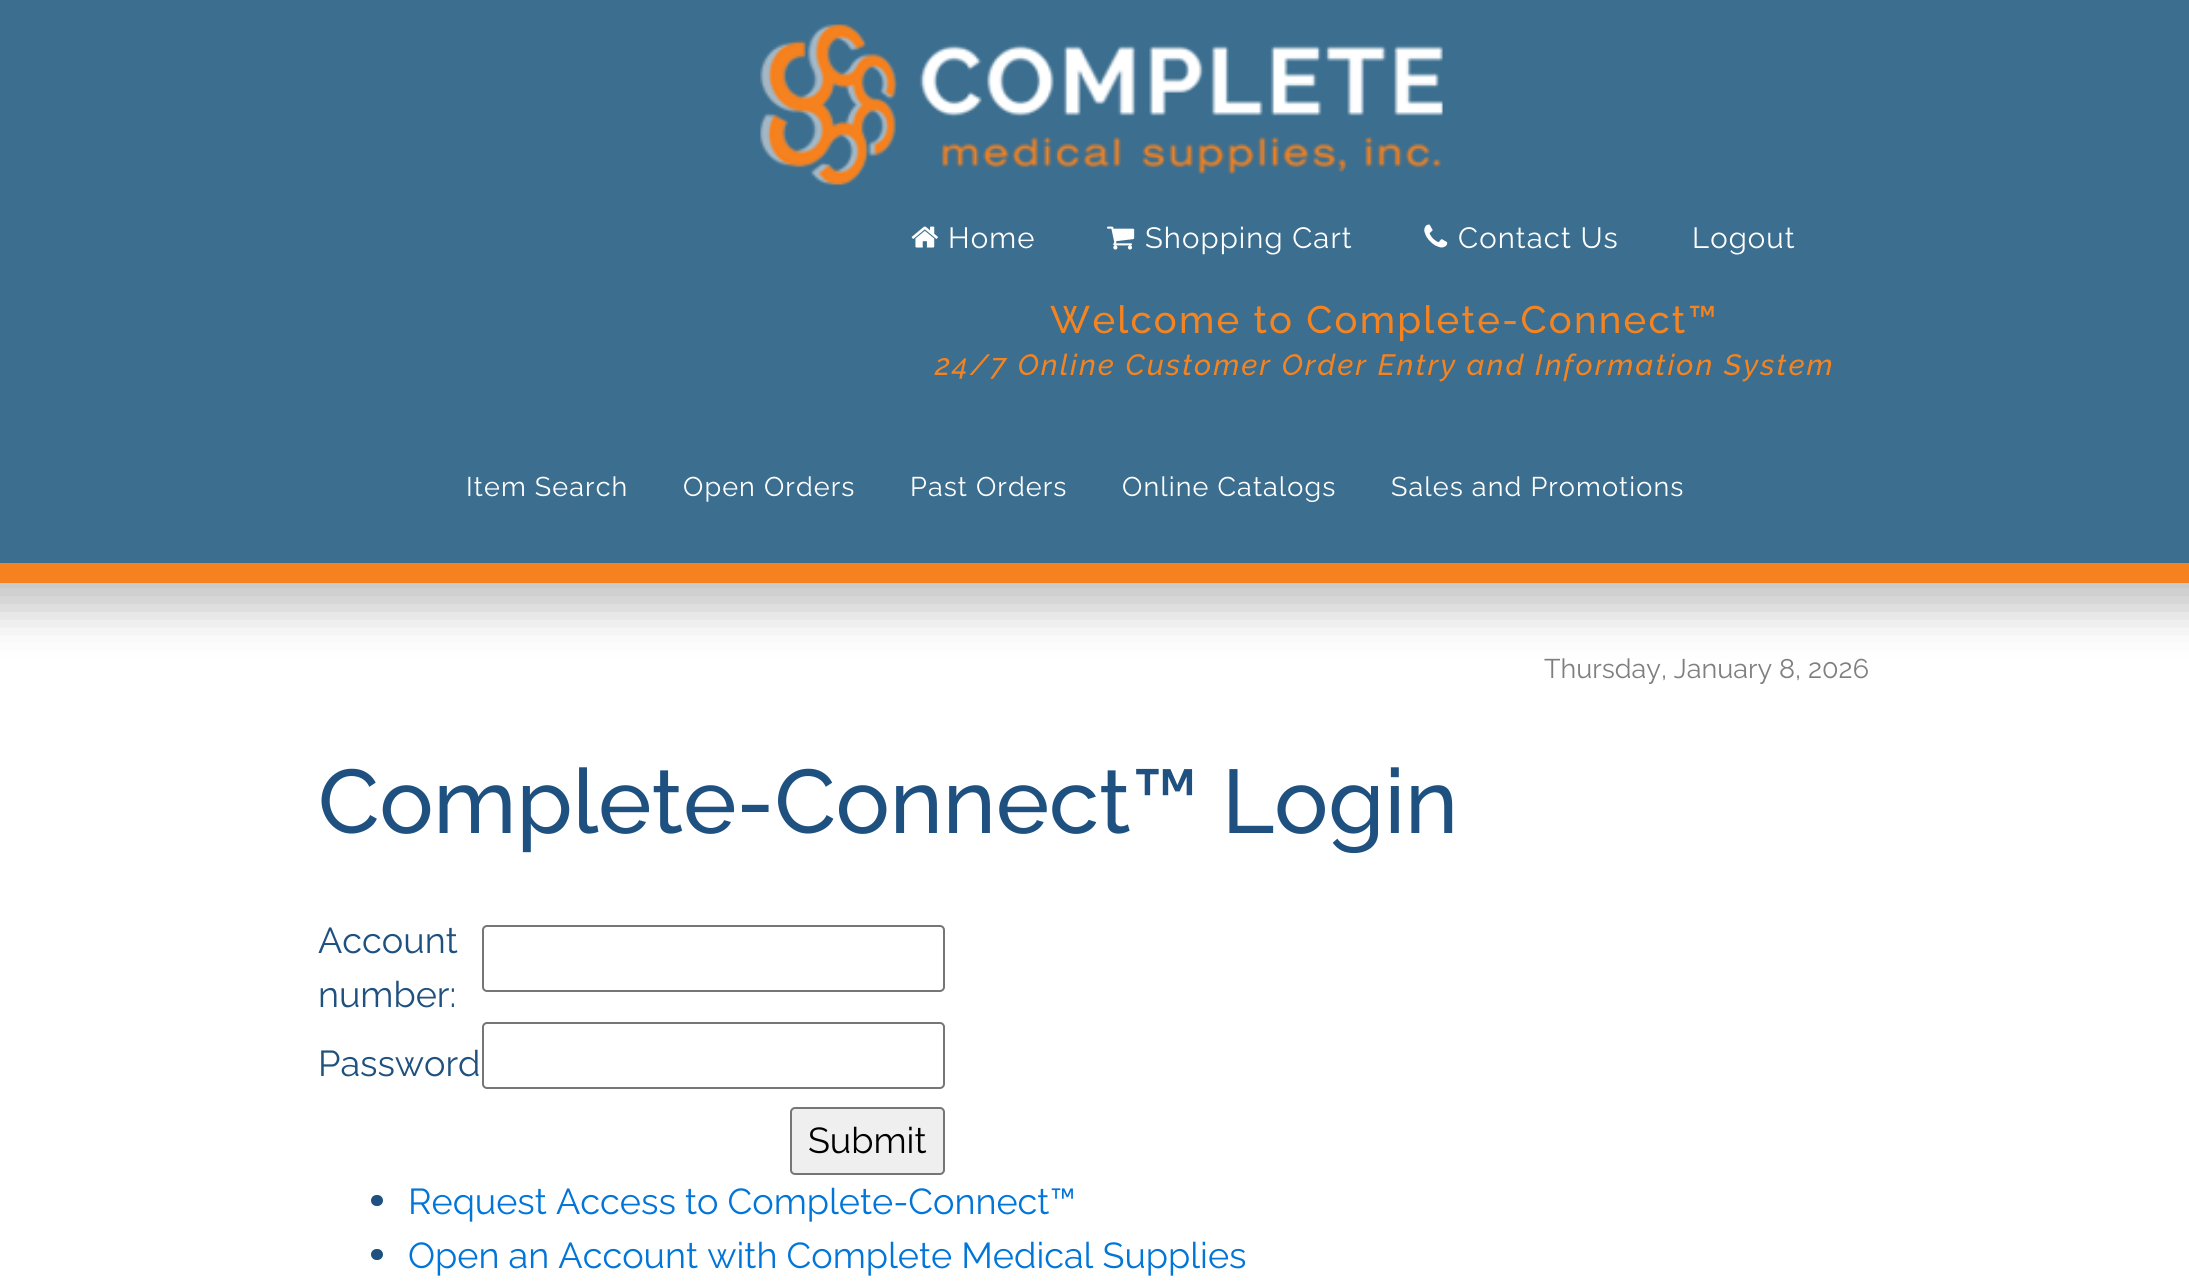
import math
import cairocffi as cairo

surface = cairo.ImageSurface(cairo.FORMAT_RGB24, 2189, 1282)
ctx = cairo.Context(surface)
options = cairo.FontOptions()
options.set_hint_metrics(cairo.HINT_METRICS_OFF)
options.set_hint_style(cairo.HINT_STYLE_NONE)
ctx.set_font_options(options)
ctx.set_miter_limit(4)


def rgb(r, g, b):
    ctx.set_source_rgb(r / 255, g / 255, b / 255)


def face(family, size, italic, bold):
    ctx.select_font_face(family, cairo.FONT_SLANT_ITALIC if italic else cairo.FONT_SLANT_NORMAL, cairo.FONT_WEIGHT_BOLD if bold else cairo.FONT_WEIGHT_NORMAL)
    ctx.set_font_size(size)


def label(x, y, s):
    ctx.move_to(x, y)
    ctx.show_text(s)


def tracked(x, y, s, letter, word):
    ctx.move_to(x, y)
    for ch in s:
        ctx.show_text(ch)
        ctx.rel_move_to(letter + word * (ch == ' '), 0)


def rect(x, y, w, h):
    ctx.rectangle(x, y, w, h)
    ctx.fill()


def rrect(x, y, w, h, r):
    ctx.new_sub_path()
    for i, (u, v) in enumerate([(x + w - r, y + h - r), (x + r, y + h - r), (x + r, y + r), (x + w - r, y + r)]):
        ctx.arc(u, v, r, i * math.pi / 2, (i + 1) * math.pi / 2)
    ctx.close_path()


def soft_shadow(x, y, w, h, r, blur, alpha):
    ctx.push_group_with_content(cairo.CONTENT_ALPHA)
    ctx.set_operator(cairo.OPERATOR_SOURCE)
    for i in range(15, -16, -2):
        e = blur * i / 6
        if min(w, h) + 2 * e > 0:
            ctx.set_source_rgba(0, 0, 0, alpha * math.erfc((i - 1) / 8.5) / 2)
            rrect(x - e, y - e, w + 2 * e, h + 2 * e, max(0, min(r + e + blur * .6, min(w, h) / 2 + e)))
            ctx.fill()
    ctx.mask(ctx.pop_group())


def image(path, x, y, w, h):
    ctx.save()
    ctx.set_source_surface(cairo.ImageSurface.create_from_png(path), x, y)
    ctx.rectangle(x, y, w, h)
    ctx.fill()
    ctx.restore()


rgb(255, 255, 255)
ctx.paint()
rgb(0, 0, 0)
soft_shadow(-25, -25, 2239, 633, 0, 23.5, 0.25)
rgb(59, 110, 143)
rect(0, 0, 2189, 563)
rgb(246, 129, 31)
rect(0, 563, 2189, 20)
image('image0.png', 760, 24, 683, 162)
image('image1.png', 911, 226, 27, 22)
face('Raleway', 29.25, 0, 0)
rgb(255, 255, 255)
tracked(948, 248, 'Home', 1.1, 0)
image('image2.png', 1107, 226, 28, 24)
tracked(1145, 248, 'Shopping Cart', 1.1, 0)
image('image3.png', 1424, 224, 24, 24)
tracked(1458, 248, 'Contact Us', 1.1, 0)
tracked(1692, 248, 'Logout', 1.1, 0)
face('Raleway Medium', 38.25, 0, 0)
rgb(244, 131, 32)
tracked(1050, 333, 'Welcome to Complete-Connect™', 2.25, 0)
face('Raleway Medium', 29.25, 1, 0)
tracked(935, 375, '24/7 Online Customer Order Entry and Information System', 2.25, 0)
face('Raleway', 27, 0, 0)
rgb(255, 255, 255)
tracked(466, 496, 'Item Search', 1.1, 0)
tracked(683, 496, 'Open Orders', 1.1, 0)
tracked(910, 496, 'Past Orders', 1.1, 0)
tracked(1122, 496, 'Online Catalogs', 1.1, 0)
tracked(1391, 496, 'Sales and Promotions', 1.1, 0)
rgb(127, 127, 127)
label(1544, 678, 'Thursday, January 8, 2026')
face('Raleway Medium', 90, 0, 0)
rgb(31, 81, 128)
label(318, 833, 'Complete-Connect™ Login')
face('Raleway', 36, 0, 0)
label(318, 953, 'Account')
label(318, 1007, 'number:')
rrect(483, 926, 461, 65, 4)
rgb(118, 118, 118)
ctx.stroke()
rgb(31, 81, 128)
label(318, 1076, 'Password')
rrect(483, 1023, 461, 65, 4)
rgb(118, 118, 118)
ctx.stroke()
rgb(239, 239, 239)
rrect(791, 1108, 153, 66, 4)
ctx.fill_preserve()
rgb(118, 118, 118)
ctx.stroke()
rgb(0, 0, 0)
label(808, 1153, 'Submit')
rgb(31, 81, 128)
rrect(371, 1195, 12, 11, 5.5)
ctx.fill()
rgb(2, 117, 216)
label(408, 1214, 'Request Access to Complete-Connect™')
rgb(31, 81, 128)
rrect(371, 1249, 12, 11, 5.5)
ctx.fill()
rgb(2, 117, 216)
label(408, 1268, 'Open an Account with Complete Medical Supplies')
surface.write_to_png('render.png')
